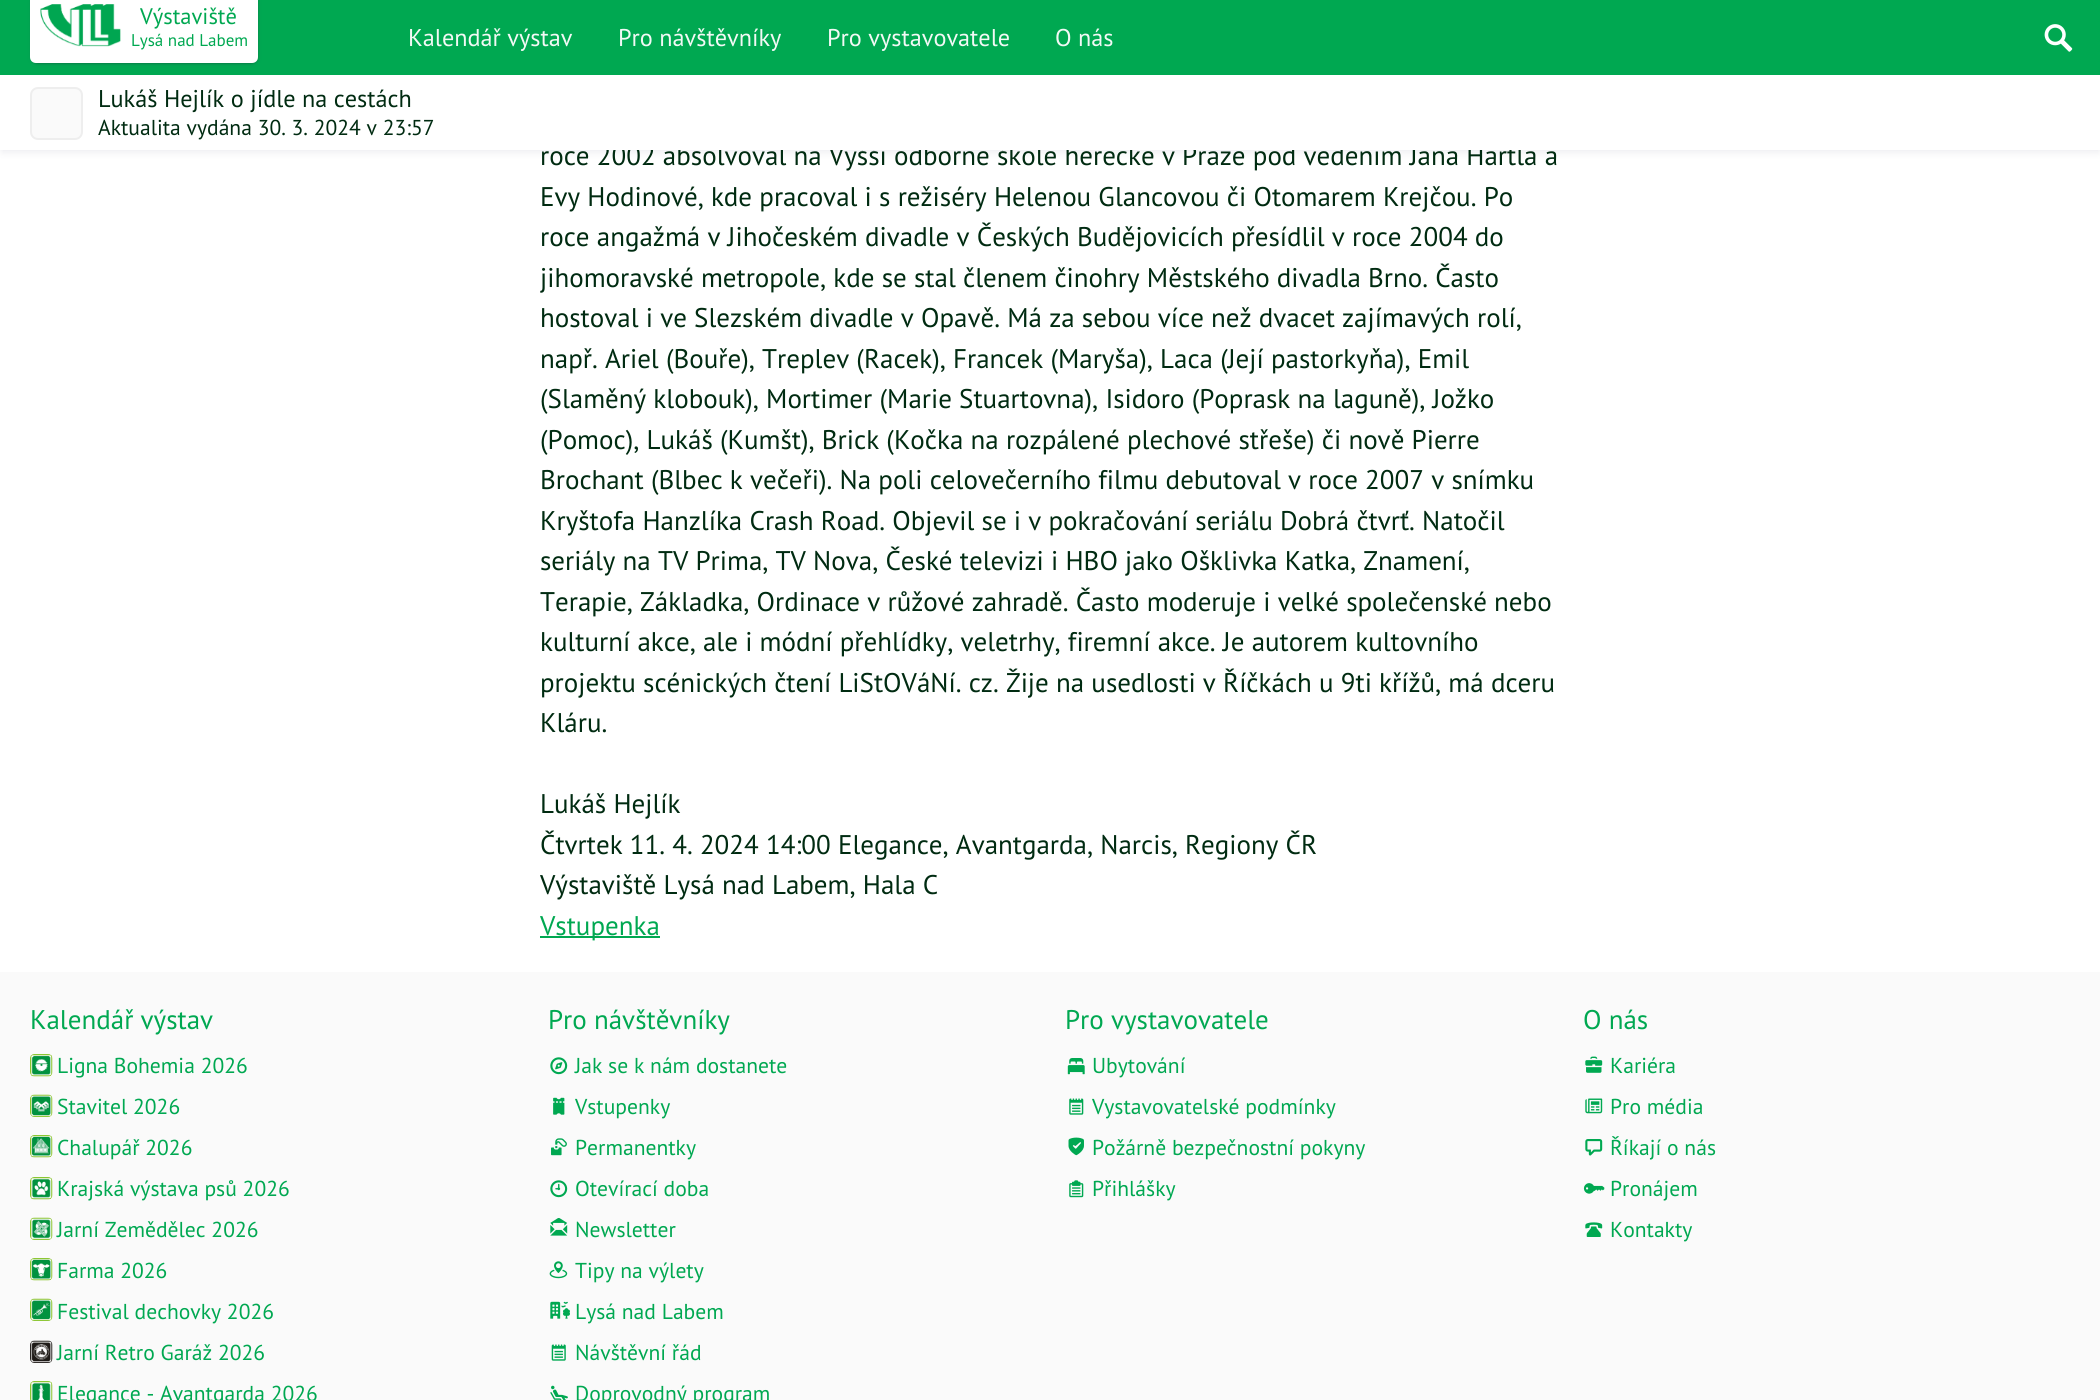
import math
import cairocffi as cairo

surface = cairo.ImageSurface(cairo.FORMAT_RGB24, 2100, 1400)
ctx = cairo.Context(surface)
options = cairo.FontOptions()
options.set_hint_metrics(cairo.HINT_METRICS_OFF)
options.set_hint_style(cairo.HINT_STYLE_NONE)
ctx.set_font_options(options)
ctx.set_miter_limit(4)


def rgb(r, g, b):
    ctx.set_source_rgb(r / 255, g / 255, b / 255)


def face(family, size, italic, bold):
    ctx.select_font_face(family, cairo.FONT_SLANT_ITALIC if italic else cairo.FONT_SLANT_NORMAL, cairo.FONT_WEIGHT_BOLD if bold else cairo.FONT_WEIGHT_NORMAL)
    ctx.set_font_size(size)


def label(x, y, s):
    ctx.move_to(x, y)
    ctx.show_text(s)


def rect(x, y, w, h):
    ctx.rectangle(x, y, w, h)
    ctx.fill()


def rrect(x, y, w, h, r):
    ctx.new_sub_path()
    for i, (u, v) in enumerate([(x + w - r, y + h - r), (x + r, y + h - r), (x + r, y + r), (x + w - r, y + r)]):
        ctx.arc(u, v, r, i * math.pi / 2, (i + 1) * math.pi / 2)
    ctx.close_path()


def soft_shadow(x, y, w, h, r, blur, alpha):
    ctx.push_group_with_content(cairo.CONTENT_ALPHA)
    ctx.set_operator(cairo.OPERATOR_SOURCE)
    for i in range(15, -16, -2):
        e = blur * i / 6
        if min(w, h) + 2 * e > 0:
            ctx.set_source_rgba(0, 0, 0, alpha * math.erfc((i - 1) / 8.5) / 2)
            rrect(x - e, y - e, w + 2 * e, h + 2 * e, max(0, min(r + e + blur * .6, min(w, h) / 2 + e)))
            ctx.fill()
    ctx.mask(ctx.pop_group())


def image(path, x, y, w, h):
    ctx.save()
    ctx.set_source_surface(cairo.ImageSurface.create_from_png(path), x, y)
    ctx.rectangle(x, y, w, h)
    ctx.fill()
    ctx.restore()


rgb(255, 255, 255)
ctx.paint()
rgb(50, 50, 93)
soft_shadow(2, 80, 2097, 72, 0, 4, 0.1)
rgb(0, 168, 81)
rect(0, 0, 2100, 75)
rgb(0, 0, 0)
soft_shadow(32, -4, 225, 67, 5, 1.5, 0.3)
rgb(50, 50, 93)
soft_shadow(32, -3, 225, 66, 5, 2.5, 0.25)
rgb(255, 255, 255)
ctx.new_path()
ctx.move_to(30, -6)
ctx.line_to(258, -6)
ctx.line_to(258, 57)
ctx.curve_to(258, 60.5, 255.5, 63, 252, 63)
ctx.line_to(36, 63)
ctx.curve_to(32.5, 63, 30, 60.5, 30, 57)
ctx.close_path()
ctx.fill()
image('image0.png', 40, 4, 81, 43)
face('PT Sans', 22.5, 0, 0)
rgb(0, 168, 81)
label(140, 24, 'Výstaviště')
face('PT Sans', 17, 0, 0)
label(131, 46, 'Lysá nad Labem')
face('PT Sans', 24.25, 0, 0)
rgb(242, 249, 245)
label(408, 46, 'Kalendář výstav')
label(618, 46, 'Pro návštěvníky')
label(827, 46, 'Pro vystavovatele')
label(1055, 46, 'O nás')
image('image1.png', 2044, 24, 29, 28)
face('PT Sans', 27, 0, 0)
rgb(0, 43, 17)
label(540, 165, 'roce 2002 absolvoval na Vyšší odborné škole herecké v Praze pod vedením Jana Hartla a')
rgb(255, 255, 255)
rect(0, 75, 2100, 75)
rgb(250, 250, 250)
rrect(31, 88, 51, 51, 7)
ctx.fill_preserve()
rgb(238, 238, 238)
ctx.stroke()
face('PT Sans', 24.25, 0, 0)
rgb(0, 43, 17)
label(98, 107, 'Lukáš Hejlík o jídle na cestách')
face('PT Sans', 21.6, 0, 0)
label(98, 135, 'Aktualita vydána 30. 3. 2024 v 23:57')
face('PT Sans', 27, 0, 0)
label(540, 206, 'Evy Hodinové, kde pracoval i s režiséry Helenou Glancovou či Otomarem Krejčou. Po')
label(540, 246, 'roce angažmá v Jihočeském divadle v Českých Budějovicích přesídlil v roce 2004 do')
label(540, 287, 'jihomoravské metropole, kde se stal členem činohry Městského divadla Brno. Často')
label(540, 327, 'hostoval i ve Slezském divadle v Opavě. Má za sebou více než dvacet zajímavých rolí,')
label(540, 368, 'např. Ariel (Bouře), Treplev (Racek), Francek (Maryša), Laca (Její pastorkyňa), Emil')
label(540, 408, '(Slaměný klobouk), Mortimer (Marie Stuartovna), Isidoro (Poprask na laguně), Jožko')
label(540, 449, '(Pomoc), Lukáš (Kumšt), Brick (Kočka na rozpálené plechové střeše) či nově Pierre')
label(540, 489, 'Brochant (Blbec k večeři). Na poli celovečerního filmu debutoval v roce 2007 v snímku')
label(540, 530, 'Kryštofa Hanzlíka Crash Road. Objevil se i v pokračování seriálu Dobrá čtvrť. Natočil')
label(540, 570, 'seriály na TV Prima, TV Nova, České televizi i HBO jako Ošklivka Katka, Znamení,')
label(540, 611, 'Terapie, Základka, Ordinace v růžové zahradě. Často moderuje i velké společenské nebo')
label(540, 651, 'kulturní akce, ale i módní přehlídky, veletrhy, firemní akce. Je autorem kultovního')
label(540, 692, 'projektu scénických čtení LiStOVáNí. cz. Žije na usedlosti v Říčkách u 9ti křížů, má dceru')
label(540, 732, 'Kláru.')
label(540, 813, 'Lukáš Hejlík')
label(540, 854, 'Čtvrtek 11. 4. 2024 14:00 Elegance, Avantgarda, Narcis, Regiony ČR')
label(540, 894, 'Výstaviště Lysá nad Labem, Hala C')
rgb(0, 168, 81)
rect(540, 936, 120, 2)
label(540, 935, 'Vstupenka')
rgb(250, 250, 250)
rect(0, 972, 2100, 428)
rgb(0, 168, 81)
label(30, 1029, 'Kalendář výstav')
image('image2.png', 30, 1054, 23, 23)
face('PT Sans', 21.6, 0, 0)
label(57, 1073, 'Ligna Bohemia 2026')
image('image3.png', 30, 1094, 23, 23)
label(57, 1114, 'Stavitel 2026')
image('image4.png', 30, 1135, 23, 23)
label(57, 1155, 'Chalupář 2026')
image('image5.png', 30, 1177, 23, 23)
label(57, 1196, 'Krajská výstava psů 2026')
image('image6.png', 30, 1217, 23, 23)
label(57, 1237, 'Jarní Zemědělec 2026')
image('image7.png', 30, 1258, 23, 23)
label(57, 1278, 'Farma 2026')
image('image8.png', 30, 1298, 23, 23)
label(57, 1319, 'Festival dechovky 2026')
image('image9.png', 30, 1340, 23, 23)
label(57, 1360, 'Jarní Retro Garáž 2026')
image('image10.png', 30, 1381, 23, 19)
label(57, 1401, 'Elegance - Avantgarda 2026')
face('PT Sans', 27, 0, 0)
label(548, 1029, 'Pro návštěvníky')
image('image11.png', 550, 1057, 18, 18)
face('PT Sans', 21.6, 0, 0)
label(575, 1073, 'Jak se k nám dostanete')
image('image12.png', 553, 1097, 12, 18)
label(575, 1114, 'Vstupenky')
image('image13.png', 551, 1138, 16, 18)
label(575, 1155, 'Permanentky')
image('image14.png', 550, 1180, 18, 18)
label(575, 1196, 'Otevírací doba')
image('image15.png', 550, 1218, 18, 18)
label(575, 1237, 'Newsletter')
image('image16.png', 549, 1261, 19, 18)
label(575, 1278, 'Tipy na výlety')
image('image17.png', 550, 1301, 20, 18)
label(575, 1319, 'Lysá nad Labem')
image('image18.png', 551, 1344, 15, 17)
label(575, 1360, 'Návštěvní řád')
image('image19.png', 550, 1385, 18, 15)
label(575, 1401, 'Doprovodný program')
face('PT Sans', 27, 0, 0)
label(1065, 1029, 'Pro vystavovatele')
image('image20.png', 1067, 1058, 18, 17)
face('PT Sans', 21.6, 0, 0)
label(1092, 1073, 'Ubytování')
image('image21.png', 1069, 1098, 15, 17)
label(1092, 1114, 'Vystavovatelské podmínky')
image('image22.png', 1068, 1137, 16, 19)
label(1092, 1155, 'Požárně bezpečnostní pokyny')
image('image23.png', 1069, 1180, 15, 18)
label(1092, 1196, 'Přihlášky')
face('PT Sans', 27, 0, 0)
label(1583, 1029, 'O nás')
image('image24.png', 1585, 1056, 18, 17)
face('PT Sans', 21.6, 0, 0)
label(1610, 1073, 'Kariéra')
image('image25.png', 1585, 1098, 18, 16)
label(1610, 1114, 'Pro média')
image('image26.png', 1585, 1139, 18, 17)
label(1610, 1155, 'Říkají o nás')
image('image27.png', 1583, 1183, 22, 11)
label(1610, 1196, 'Pronájem')
image('image28.png', 1585, 1222, 18, 15)
label(1610, 1237, 'Kontakty')
surface.write_to_png('render.png')
